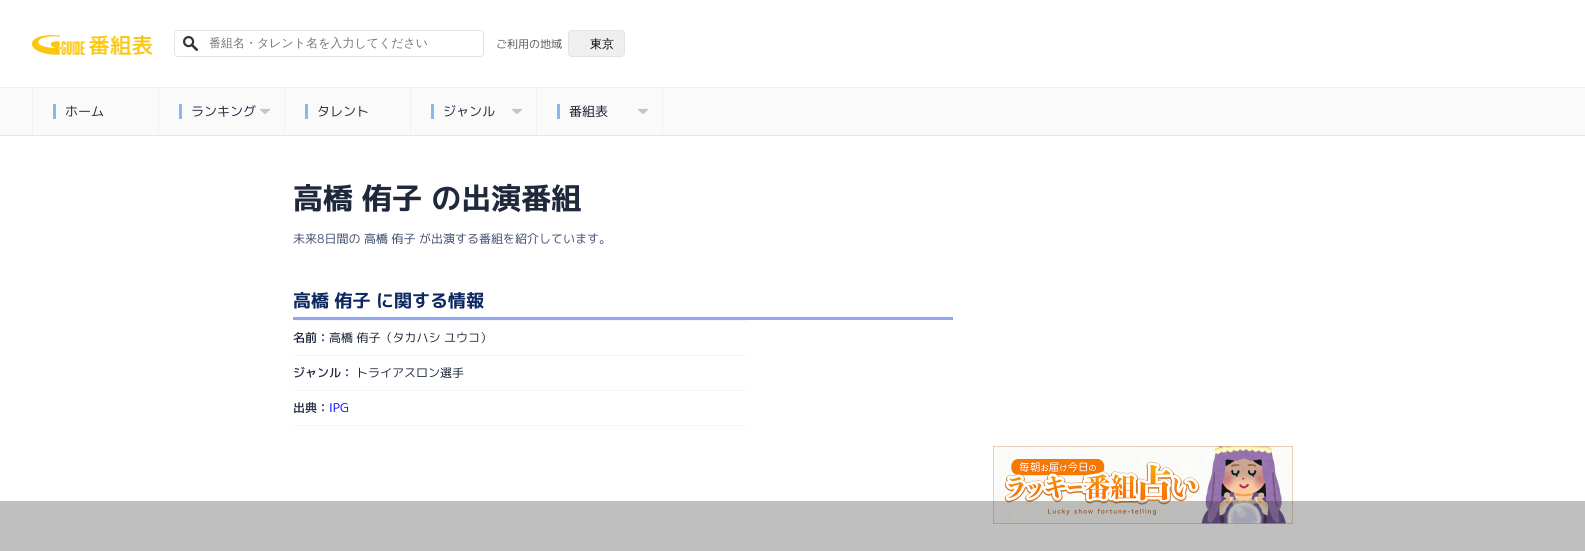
import math
import cairocffi as cairo

surface = cairo.ImageSurface(cairo.FORMAT_RGB24, 1585, 551)
ctx = cairo.Context(surface)
options = cairo.FontOptions()
options.set_hint_metrics(cairo.HINT_METRICS_OFF)
options.set_hint_style(cairo.HINT_STYLE_NONE)
ctx.set_font_options(options)
ctx.set_miter_limit(4)


def rgb(r, g, b):
    ctx.set_source_rgb(r / 255, g / 255, b / 255)


def face(family, size, italic, bold):
    ctx.select_font_face(family, cairo.FONT_SLANT_ITALIC if italic else cairo.FONT_SLANT_NORMAL, cairo.FONT_WEIGHT_BOLD if bold else cairo.FONT_WEIGHT_NORMAL)
    ctx.set_font_size(size)


def label(x, y, s):
    ctx.move_to(x, y)
    ctx.show_text(s)


def rect(x, y, w, h):
    ctx.rectangle(x, y, w, h)
    ctx.fill()


def rrect(x, y, w, h, r):
    ctx.new_sub_path()
    for i, (u, v) in enumerate([(x + w - r, y + h - r), (x + r, y + h - r), (x + r, y + r), (x + w - r, y + r)]):
        ctx.arc(u, v, r, i * math.pi / 2, (i + 1) * math.pi / 2)
    ctx.close_path()


def image(path, x, y, w, h):
    ctx.save()
    ctx.set_source_surface(cairo.ImageSurface.create_from_png(path), x, y)
    ctx.rectangle(x, y, w, h)
    ctx.fill()
    ctx.restore()


rgb(255, 255, 255)
ctx.paint()
image('image0.png', 32, 35, 120, 20)
rrect(174.5, 30.5, 309, 26, 3.5)
rgb(227, 227, 227)
ctx.set_line_width(1)
ctx.stroke()
image('image1.png', 183, 36, 15, 15)
face('WenQuanYi Zen Hei Medium', 12, 0, 0)
rgb(117, 117, 117)
label(209, 47, '番組名・タレント名を入力してください')
face('M PLUS 1p', 11, 0, 0)
rgb(91, 91, 91)
label(496, 48, 'ご利用の地域')
rgb(239, 239, 239)
rrect(568.5, 30.5, 56, 26, 3.5)
ctx.fill_preserve()
rgb(227, 227, 227)
ctx.stroke()
face('WenQuanYi Zen Hei Medium', 12, 0, 0)
rgb(0, 0, 0)
label(590, 48, '東京')
rgb(250, 250, 250)
rect(0, 88, 1585, 47)
rgb(241, 241, 241)
rect(0, 87, 1585, 1)
rgb(229, 229, 229)
rect(0, 135, 1585, 1)
rgb(241, 241, 241)
rect(32, 88, 1, 48)
rgb(147, 178, 243)
rect(53, 104, 3, 15)
face('M PLUS 1p', 13, 0, 0)
rgb(32, 40, 60)
label(65, 116, 'ホーム')
rgb(241, 241, 241)
rect(158, 88, 1, 48)
rgb(147, 178, 243)
rect(179, 104, 3, 15)
rgb(32, 40, 60)
label(191, 116, 'ランキング')
image('image2.png', 260, 108, 10, 6)
rgb(241, 241, 241)
rect(284, 88, 1, 48)
rgb(147, 178, 243)
rect(305, 104, 3, 15)
rgb(32, 40, 60)
label(317, 116, 'タレント')
rgb(241, 241, 241)
rect(410, 88, 1, 48)
rgb(147, 178, 243)
rect(431, 104, 3, 15)
rgb(32, 40, 60)
label(443, 116, 'ジャンル')
image('image2.png', 512, 108, 10, 6)
rgb(241, 241, 241)
rect(662, 88, 1, 48)
rgb(229, 229, 229)
rect(662, 135, 1, 1)
rgb(241, 241, 241)
rect(536, 88, 1, 48)
rgb(147, 178, 243)
rect(557, 104, 3, 15)
rgb(32, 40, 60)
label(569, 116, '番組表')
image('image2.png', 638, 108, 10, 6)
face('M PLUS 1p', 30, 0, 1)
label(293, 209, '高橋 侑子 の出演番組')
face('M PLUS 1p', 12, 0, 0)
rgb(67, 80, 113)
label(293, 243, '未来8日間の 高橋 侑子 が出演する番組を紹介しています。')
rgb(144, 166, 241)
rect(293, 317, 660, 3)
face('M PLUS 1p', 18, 0, 1)
rgb(14, 41, 97)
label(293, 307, '高橋 侑子 に関する情報')
rgb(244, 246, 249)
rect(293, 320, 455, 1)
rect(293, 355, 455, 1)
face('M PLUS 1p Medium', 12, 0, 0)
rgb(32, 40, 60)
label(293, 342, '名前：')
face('M PLUS 1p', 12, 0, 0)
label(329, 342, '高橋 侑子（タカハシ ユウコ）')
rgb(244, 246, 249)
rect(293, 390, 455, 1)
face('M PLUS 1p Medium', 12, 0, 0)
rgb(32, 40, 60)
label(293, 377, 'ジャンル：')
face('M PLUS 1p', 12, 0, 0)
label(356, 377, 'トライアスロン選手')
rgb(244, 246, 249)
rect(293, 425, 455, 1)
face('M PLUS 1p Medium', 12, 0, 0)
rgb(32, 40, 60)
label(293, 412, '出典：')
face('M PLUS 1p', 12, 0, 0)
rgb(0, 0, 238)
label(329, 412, 'IPG')
image('image3.png', 993, 446, 300, 78)
ctx.set_source_rgba(0.157, 0.157, 0.157, 0.3)
rect(0, 501, 1585, 50)
surface.write_to_png('render.png')
